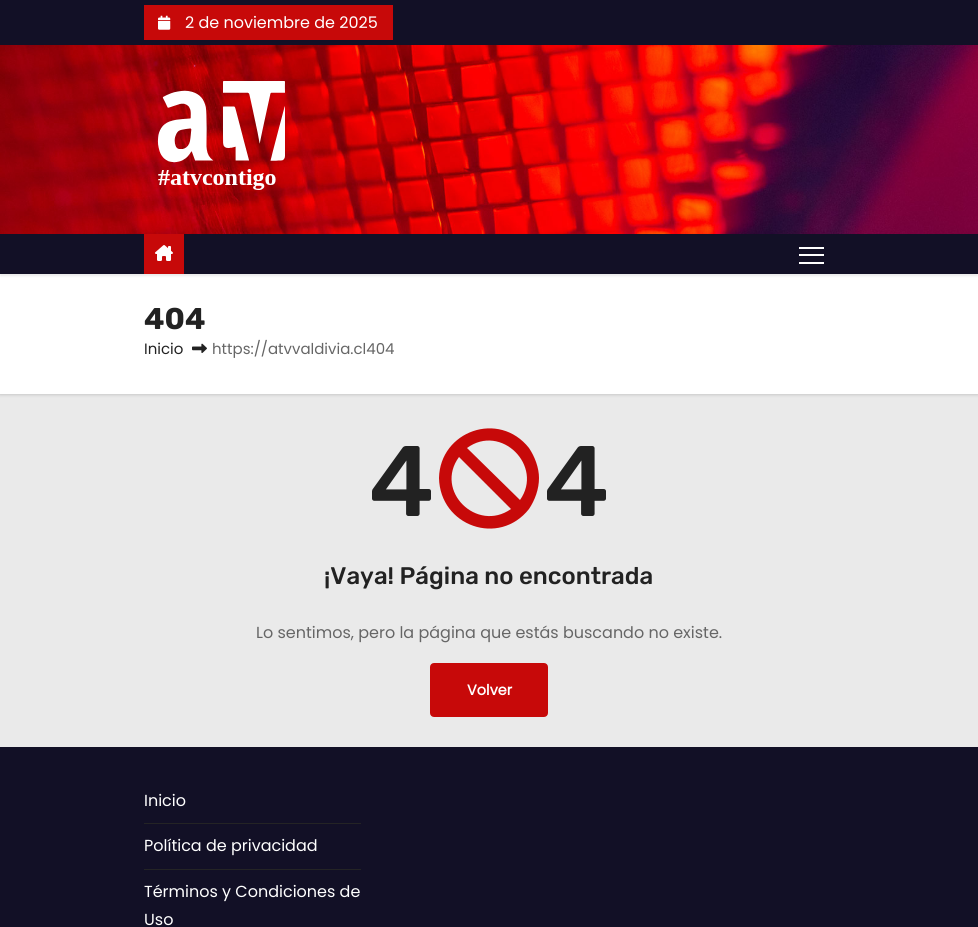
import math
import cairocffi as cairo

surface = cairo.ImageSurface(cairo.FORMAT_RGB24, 978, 927)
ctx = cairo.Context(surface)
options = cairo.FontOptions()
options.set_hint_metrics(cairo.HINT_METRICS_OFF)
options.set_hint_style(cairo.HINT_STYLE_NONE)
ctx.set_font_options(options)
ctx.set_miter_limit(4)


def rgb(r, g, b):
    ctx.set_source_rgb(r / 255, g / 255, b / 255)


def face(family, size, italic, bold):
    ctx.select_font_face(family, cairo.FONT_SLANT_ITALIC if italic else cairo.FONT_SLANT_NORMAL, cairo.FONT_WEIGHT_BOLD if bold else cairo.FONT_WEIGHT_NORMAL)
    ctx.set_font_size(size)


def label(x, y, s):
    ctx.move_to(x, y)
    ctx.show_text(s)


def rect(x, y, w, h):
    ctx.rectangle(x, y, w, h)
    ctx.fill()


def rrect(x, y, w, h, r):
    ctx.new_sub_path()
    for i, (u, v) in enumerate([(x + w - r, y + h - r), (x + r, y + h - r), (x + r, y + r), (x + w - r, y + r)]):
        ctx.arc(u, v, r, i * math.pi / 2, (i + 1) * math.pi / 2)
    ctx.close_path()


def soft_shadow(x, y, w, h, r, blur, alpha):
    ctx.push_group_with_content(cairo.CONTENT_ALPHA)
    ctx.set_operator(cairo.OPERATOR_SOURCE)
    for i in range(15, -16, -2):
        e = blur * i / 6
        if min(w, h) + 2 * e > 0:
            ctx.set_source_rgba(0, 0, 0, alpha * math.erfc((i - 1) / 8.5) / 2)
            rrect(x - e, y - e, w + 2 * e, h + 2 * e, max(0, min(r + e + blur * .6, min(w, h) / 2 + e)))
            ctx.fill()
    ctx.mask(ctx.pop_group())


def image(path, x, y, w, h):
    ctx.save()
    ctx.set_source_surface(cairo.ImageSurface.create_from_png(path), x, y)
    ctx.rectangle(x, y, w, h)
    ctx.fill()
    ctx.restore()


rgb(234, 234, 234)
ctx.paint()
rgb(18, 16, 38)
rect(0, 0, 978, 45)
rgb(199, 9, 9)
rect(144, 5, 249, 35)
image('image0.png', 158, 15, 13, 15)
face('Poppins', 16, 0, 0)
rgb(255, 255, 255)
label(185, 28, '2 de noviembre de 2025')
image('image1.png', 0, 45, 978, 189)
image('image2.png', 157, 81, 128, 109)
rgb(0, 0, 0)
soft_shadow(0, 275, 978, 120, 0, 1.5, 0.15)
rgb(255, 255, 255)
rect(0, 274, 978, 120)
rgb(0, 0, 0)
soft_shadow(0, 236, 978, 40, 0, 1, 0.08)
rgb(18, 16, 38)
rect(0, 234, 978, 40)
rgb(199, 9, 9)
rect(144, 234, 40, 40)
image('image3.png', 155, 245, 18, 16)
rgb(255, 255, 255)
rect(799, 247, 25, 2)
rect(799, 254, 25, 2)
rect(799, 262, 25, 2)
face('Rubik', 30, 0, 1)
rgb(34, 34, 34)
label(144, 329, '404')
face('Poppins', 15, 0, 0)
label(144, 354, 'Inicio')
image('image4.png', 192, 343, 15, 10)
rgb(102, 102, 102)
label(212, 354, 'https://atvvaldivia.cl404')
face('Rubik Medium', 100, 0, 0)
rgb(34, 34, 34)
label(369, 516, '4')
rgb(199, 9, 9)
ctx.new_path()
ctx.move_to(511, 509)
ctx.line_to(459, 457)
ctx.curve_to(434, 491, 477, 533, 511, 509)
ctx.close_path()
ctx.move_to(520, 500)
ctx.curve_to(544, 466, 501, 423, 467, 448)
ctx.close_path()
ctx.move_to(439, 478)
ctx.curve_to(440, 431, 499, 410, 529, 448)
ctx.curve_to(535, 457, 539, 468, 539, 478)
ctx.curve_to(539, 489, 535, 500, 529, 509)
ctx.curve_to(499, 547, 440, 526, 439, 478)
ctx.close_path()
ctx.fill()
rgb(34, 34, 34)
label(544, 516, '4')
face('Rubik Medium', 24, 0, 0)
label(324, 584, '¡Vaya! Página no encontrada')
face('Poppins', 16, 0, 0)
rgb(102, 102, 102)
label(256, 638, 'Lo sentimos, pero la página que estás buscando no existe.')
rgb(199, 9, 9)
rrect(431, 664, 116, 52, 3)
ctx.fill_preserve()
ctx.stroke()
face('Poppins', 14.5, 0, 1)
rgb(255, 255, 255)
label(467, 695, 'Volver')
rgb(18, 16, 38)
rect(0, 747, 978, 180)
rgb(36, 36, 37)
rect(144, 823, 217, 1)
face('Poppins', 16, 0, 0)
rgb(255, 255, 255)
label(144, 806, 'Inicio')
rgb(36, 36, 37)
rect(144, 869, 217, 1)
rgb(255, 255, 255)
label(144, 851, 'Política de privacidad')
label(144, 897, 'Términos y Condiciones de')
label(144, 925, 'Uso')
surface.write_to_png('render.png')
